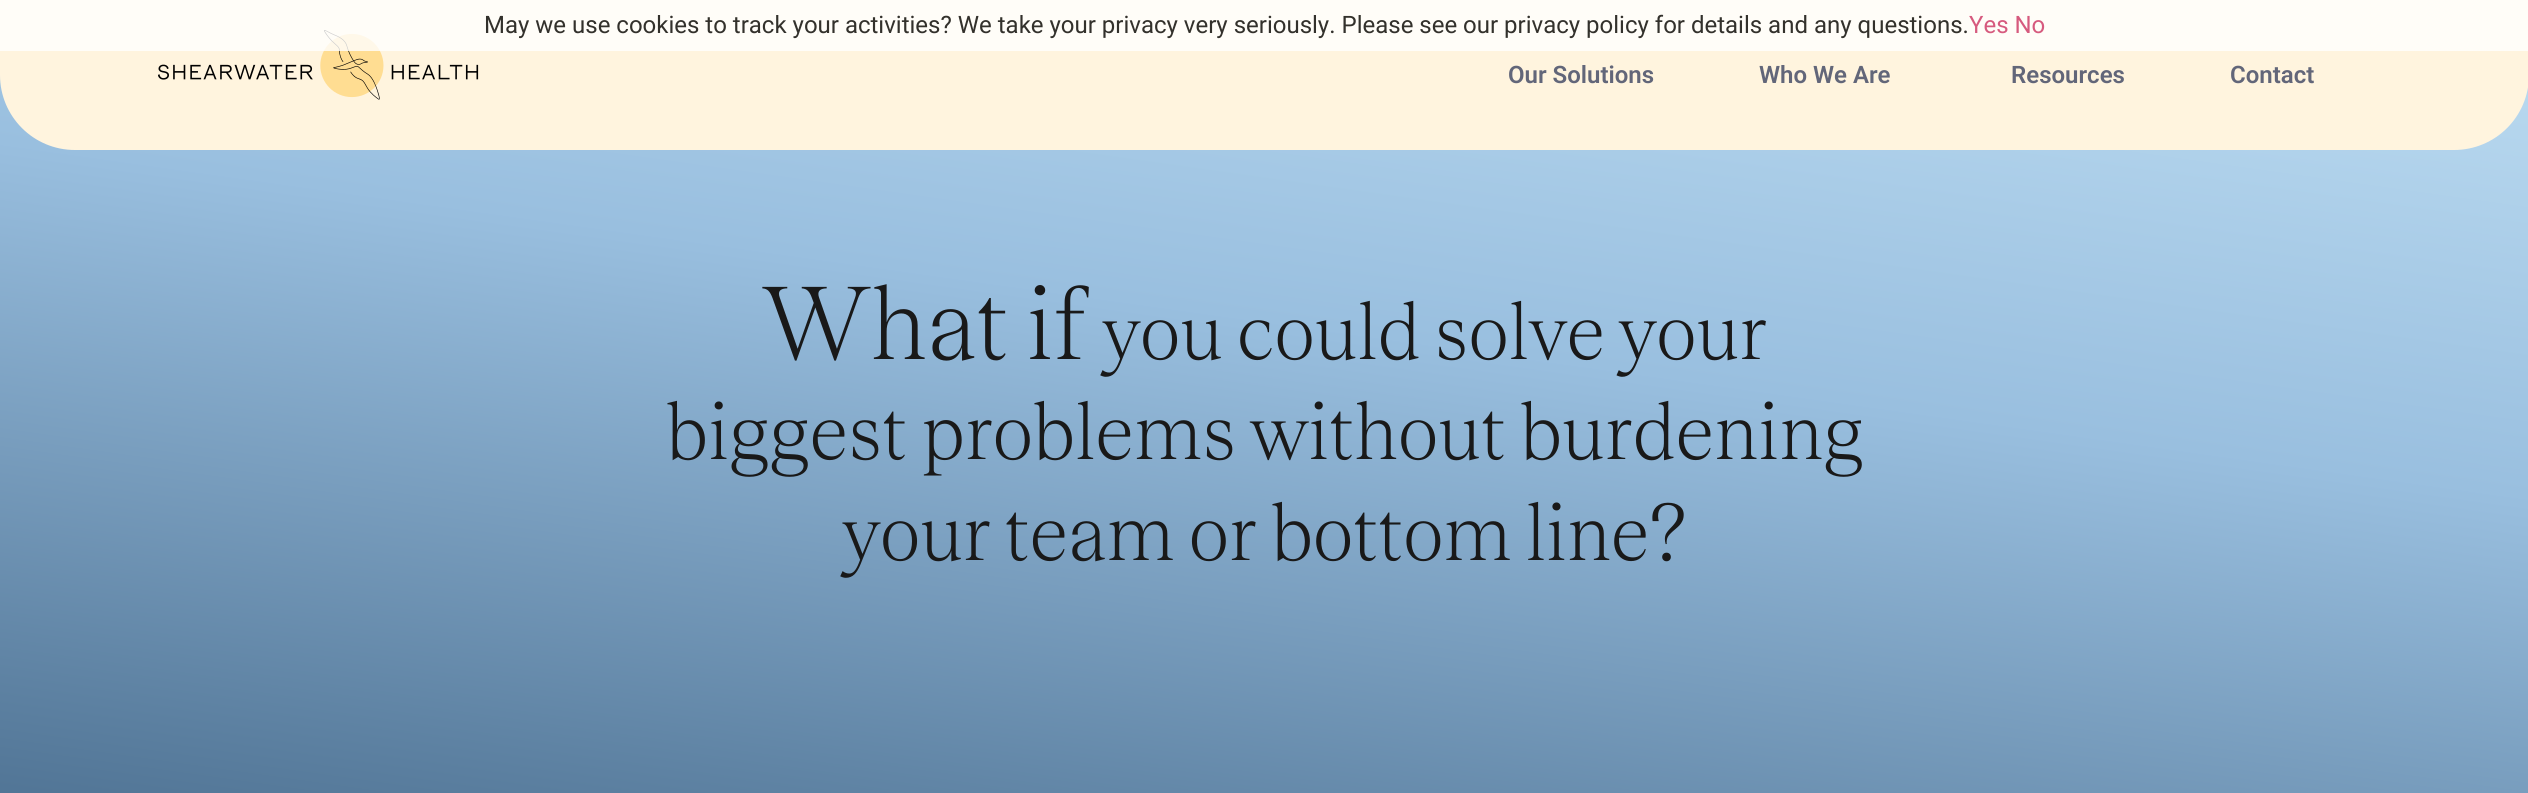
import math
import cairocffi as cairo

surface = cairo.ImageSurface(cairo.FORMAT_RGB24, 2528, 793)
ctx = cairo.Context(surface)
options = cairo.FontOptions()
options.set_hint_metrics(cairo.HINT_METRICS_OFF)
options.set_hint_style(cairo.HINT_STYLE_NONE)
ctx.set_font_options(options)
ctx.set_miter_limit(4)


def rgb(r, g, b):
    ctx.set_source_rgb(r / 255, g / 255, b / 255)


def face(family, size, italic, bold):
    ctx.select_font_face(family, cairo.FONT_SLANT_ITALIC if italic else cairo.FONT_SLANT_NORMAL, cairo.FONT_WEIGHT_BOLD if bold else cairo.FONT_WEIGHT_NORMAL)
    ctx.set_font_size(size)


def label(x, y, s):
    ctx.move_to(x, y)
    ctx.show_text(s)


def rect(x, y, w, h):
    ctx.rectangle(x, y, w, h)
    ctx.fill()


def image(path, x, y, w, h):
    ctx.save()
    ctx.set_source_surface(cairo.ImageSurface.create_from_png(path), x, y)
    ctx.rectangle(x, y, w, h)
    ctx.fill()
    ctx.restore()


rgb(255, 255, 255)
ctx.paint()
gradient = cairo.LinearGradient(1167, 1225, 1362, -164)
gradient.add_color_stop_rgba(0, 0.204, 0.341, 0.471, 1)
gradient.add_color_stop_rgba(0.65, 0.6, 0.749, 0.875, 1)
gradient.add_color_stop_rgba(1, 0.745, 0.867, 0.949, 1)
ctx.set_source(gradient)
rect(0, 75, 2528, 718)
rgb(255, 244, 222)
ctx.new_path()
ctx.move_to(0, 0)
ctx.line_to(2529, 0)
ctx.line_to(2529, 75)
ctx.curve_to(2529, 116.5, 2495.5, 150, 2454, 150)
ctx.line_to(75, 150)
ctx.curve_to(33.5, 150, 0, 116.5, 0, 75)
ctx.close_path()
ctx.fill()
image('image0.png', 158, 30, 321, 70)
ctx.set_source_rgba(1, 1, 1, 0.8)
rect(0, 0, 2528, 51)
face('Roboto', 24, 0, 0)
rgb(51, 49, 44)
label(484, 33, 'May we use cookies to track your activities? We take your privacy very seriously. Please see our privacy policy for details and any questions.')
rgb(214, 90, 126)
label(1969, 33, 'Yes No')
face('Roboto SemiBold', 24, 0, 0)
rgb(98, 102, 121)
label(1508, 83, 'Our Solutions')
label(1759, 83, 'Who We Are')
label(2011, 83, 'Resources')
label(2230, 83, 'Contact')
face('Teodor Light', 108, 0, 0)
rgb(25, 25, 25)
label(762, 359, 'What if')
face('Teodor Light', 84, 0, 0)
label(1103, 359, 'you could solve your')
label(666, 459, 'biggest problems without burdening')
label(843, 560, 'your team or bottom line?')
surface.write_to_png('render.png')
